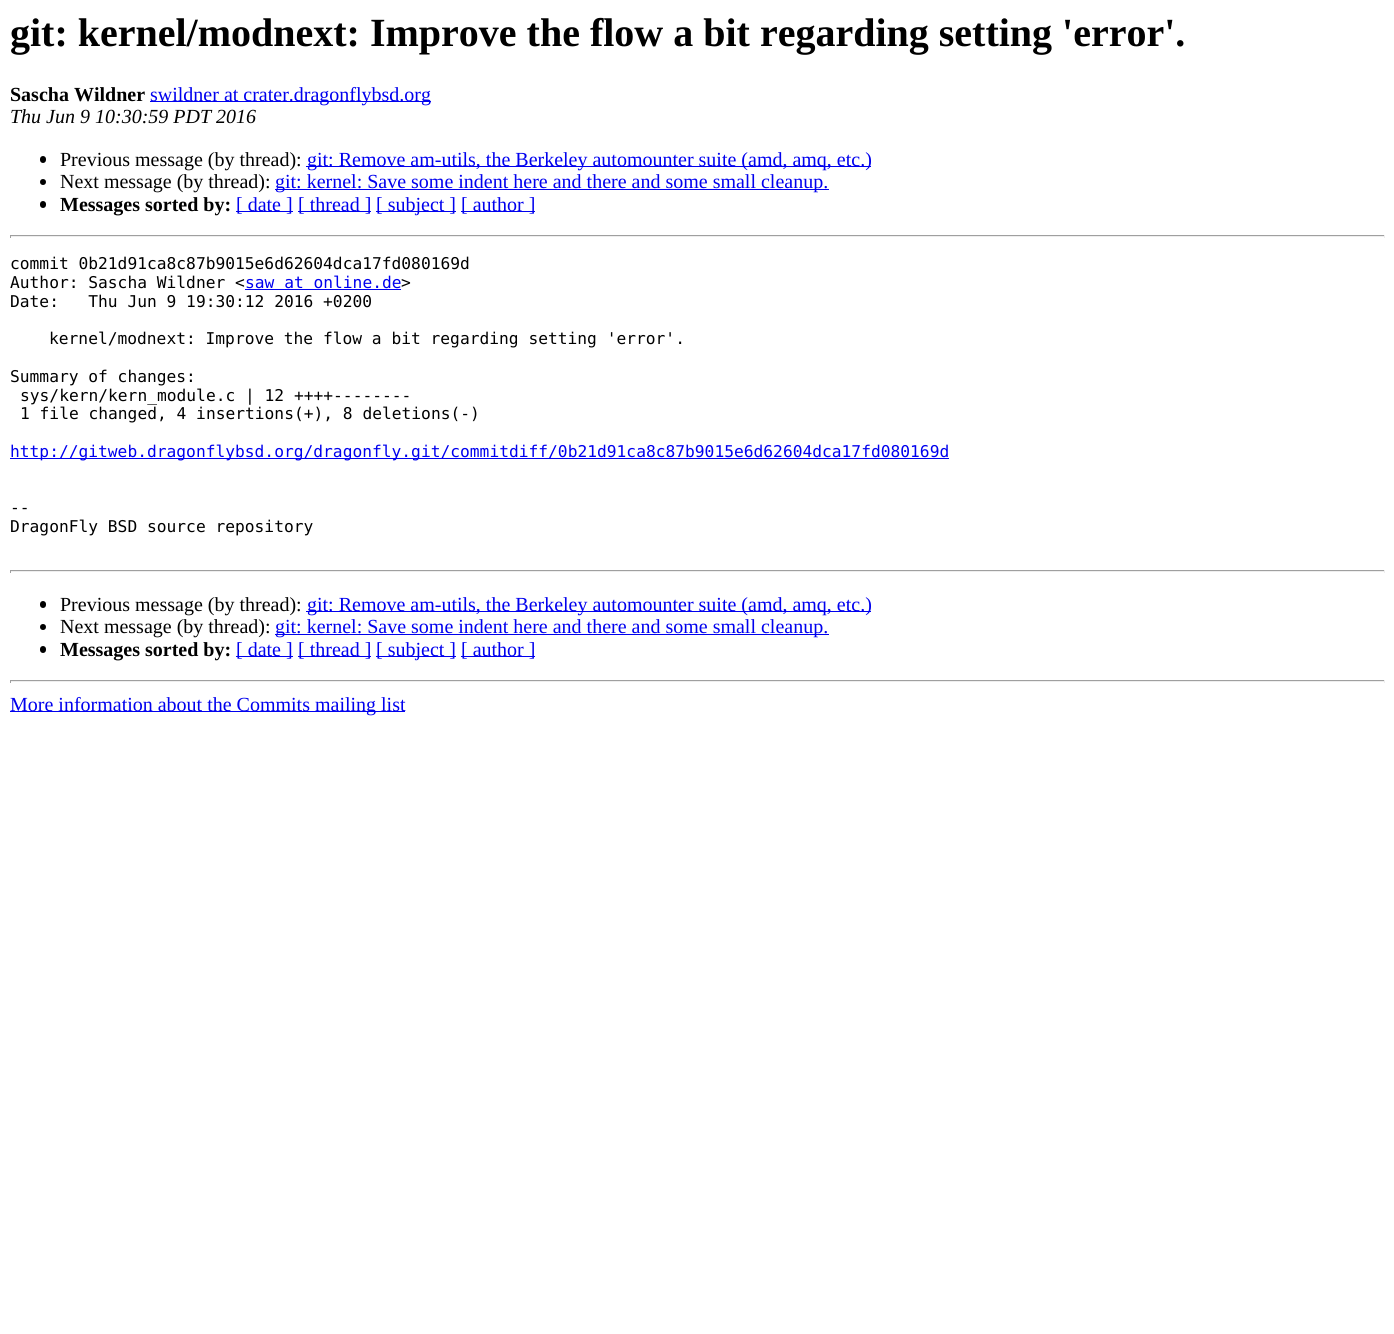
import math
import cairocffi as cairo

surface = cairo.ImageSurface(cairo.FORMAT_RGB24, 1394, 1334)
ctx = cairo.Context(surface)
options = cairo.FontOptions()
options.set_hint_metrics(cairo.HINT_METRICS_OFF)
options.set_hint_style(cairo.HINT_STYLE_NONE)
ctx.set_font_options(options)
ctx.set_miter_limit(4)


def rgb(r, g, b):
    ctx.set_source_rgb(r / 255, g / 255, b / 255)


def face(family, size, italic, bold):
    ctx.select_font_face(family, cairo.FONT_SLANT_ITALIC if italic else cairo.FONT_SLANT_NORMAL, cairo.FONT_WEIGHT_BOLD if bold else cairo.FONT_WEIGHT_NORMAL)
    ctx.set_font_size(size)


def label(x, y, s):
    ctx.move_to(x, y)
    ctx.show_text(s)


def rect(x, y, w, h):
    ctx.rectangle(x, y, w, h)
    ctx.fill()


def rrect(x, y, w, h, r):
    ctx.new_sub_path()
    for i, (u, v) in enumerate([(x + w - r, y + h - r), (x + r, y + h - r), (x + r, y + r), (x + w - r, y + r)]):
        ctx.arc(u, v, r, i * math.pi / 2, (i + 1) * math.pi / 2)
    ctx.close_path()


rgb(255, 255, 255)
ctx.paint()
face('Liberation Serif', 40, 0, 1)
rgb(0, 0, 0)
label(10, 46, 'git: kernel/modnext: Improve the flow a bit regarding setting \'error\'.')
face('Liberation Serif', 20, 0, 1)
label(10, 101, 'Sascha Wildner')
rgb(0, 0, 238)
rect(150, 101, 281, 1)
face('Liberation Serif', 20, 0, 0)
label(150, 101, 'swildner at crater.dragonflybsd.org')
face('Liberation Serif', 20, 1, 0)
rgb(0, 0, 0)
label(10, 123, 'Thu Jun 9 10:30:59 PDT 2016')
rrect(40, 156, 6, 7, 3)
ctx.fill()
face('Liberation Serif', 20, 0, 0)
label(60, 166, 'Previous message (by thread):')
rgb(0, 0, 238)
rect(306, 166, 565, 1)
label(307, 166, 'git: Remove am-utils, the Berkeley automounter suite (amd, amq, etc.)')
rgb(0, 0, 0)
ctx.new_path()
ctx.arc(43, 182, 3, 0, 2 * math.pi)
ctx.fill()
label(60, 188, 'Next message (by thread):')
rgb(0, 0, 238)
rect(275, 189, 554, 1)
label(275, 188, 'git: kernel: Save some indent here and there and some small cleanup.')
rgb(0, 0, 0)
rrect(40, 201, 6, 7, 3)
ctx.fill()
face('Liberation Serif', 20, 0, 1)
label(60, 211, 'Messages sorted by:')
rgb(0, 0, 238)
rect(236, 211, 57, 1)
face('Liberation Serif', 20, 0, 0)
label(236, 211, '[ date ]')
rect(298, 211, 73, 1)
label(298, 211, '[ thread ]')
rect(376, 211, 80, 1)
label(376, 211, '[ subject ]')
rect(461, 211, 74, 1)
label(461, 211, '[ author ]')
rgb(159, 159, 159)
rect(10, 235, 1375, 1)
rgb(238, 238, 238)
rect(1384, 235, 1, 3)
rect(10, 236, 1375, 1)
rgb(159, 159, 159)
rect(10, 235, 1, 3)
face('DejaVu Sans Mono', 16.25, 0, 0)
rgb(0, 0, 0)
label(10, 269, 'commit 0b21d91ca8c87b9015e6d62604dca17fd080169d')
label(10, 288, 'Author: Sascha Wildner <')
rgb(0, 0, 238)
label(245, 288, 'saw at online.de')
rect(245, 289, 156, 1)
rgb(0, 0, 0)
label(401, 288, '>')
label(10, 307, 'Date:   Thu Jun 9 19:30:12 2016 +0200')
label(49, 344, 'kernel/modnext: Improve the flow a bit regarding setting \'error\'.')
label(10, 382, 'Summary of changes:')
label(20, 401, 'sys/kern/kern_module.c | 12 ++++--------')
label(20, 419, '1 file changed, 4 insertions(+), 8 deletions(-)')
rgb(0, 0, 238)
rect(10, 458, 939, 1)
label(10, 457, 'http://gitweb.dragonflybsd.org/dragonfly.git/commitdiff/0b21d91ca8c87b9015e6d62604dca17fd080169d')
rgb(0, 0, 0)
label(10, 513, '--')
label(10, 532, 'DragonFly BSD source repository')
rgb(159, 159, 159)
rect(10, 570, 1375, 1)
rgb(238, 238, 238)
rect(1384, 570, 1, 3)
rect(10, 571, 1375, 1)
rgb(159, 159, 159)
rect(10, 570, 1, 3)
rgb(0, 0, 0)
rrect(40, 601, 6, 7, 3)
ctx.fill()
face('Liberation Serif', 20, 0, 0)
label(60, 611, 'Previous message (by thread):')
rgb(0, 0, 238)
rect(306, 611, 565, 1)
label(307, 611, 'git: Remove am-utils, the Berkeley automounter suite (amd, amq, etc.)')
rgb(0, 0, 0)
ctx.new_path()
ctx.arc(43, 627, 3, 0, 2 * math.pi)
ctx.fill()
label(60, 633, 'Next message (by thread):')
rgb(0, 0, 238)
rect(275, 634, 554, 1)
label(275, 633, 'git: kernel: Save some indent here and there and some small cleanup.')
rgb(0, 0, 0)
rrect(40, 646, 6, 7, 3)
ctx.fill()
face('Liberation Serif', 20, 0, 1)
label(60, 656, 'Messages sorted by:')
rgb(0, 0, 238)
rect(236, 656, 57, 1)
face('Liberation Serif', 20, 0, 0)
label(236, 656, '[ date ]')
rect(298, 656, 73, 1)
label(298, 656, '[ thread ]')
rect(376, 656, 80, 1)
label(376, 656, '[ subject ]')
rect(461, 656, 74, 1)
label(461, 656, '[ author ]')
rgb(159, 159, 159)
rect(10, 680, 1375, 1)
rgb(238, 238, 238)
rect(1384, 680, 1, 3)
rect(10, 681, 1375, 1)
rgb(159, 159, 159)
rect(10, 680, 1, 3)
rgb(0, 0, 238)
rect(10, 711, 395, 1)
label(10, 711, 'More information about the Commits mailing list')
surface.write_to_png('render.png')
